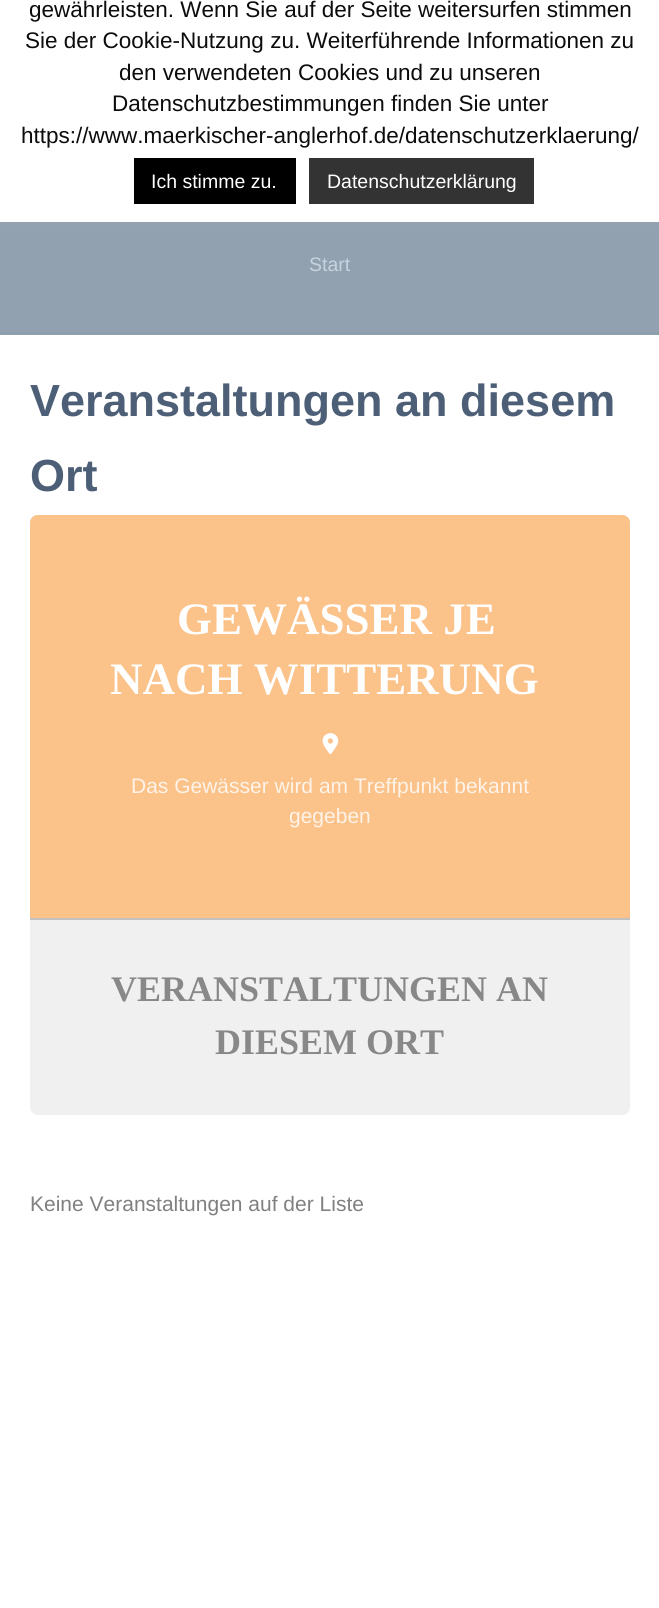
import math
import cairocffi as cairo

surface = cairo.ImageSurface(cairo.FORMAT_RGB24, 659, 1608)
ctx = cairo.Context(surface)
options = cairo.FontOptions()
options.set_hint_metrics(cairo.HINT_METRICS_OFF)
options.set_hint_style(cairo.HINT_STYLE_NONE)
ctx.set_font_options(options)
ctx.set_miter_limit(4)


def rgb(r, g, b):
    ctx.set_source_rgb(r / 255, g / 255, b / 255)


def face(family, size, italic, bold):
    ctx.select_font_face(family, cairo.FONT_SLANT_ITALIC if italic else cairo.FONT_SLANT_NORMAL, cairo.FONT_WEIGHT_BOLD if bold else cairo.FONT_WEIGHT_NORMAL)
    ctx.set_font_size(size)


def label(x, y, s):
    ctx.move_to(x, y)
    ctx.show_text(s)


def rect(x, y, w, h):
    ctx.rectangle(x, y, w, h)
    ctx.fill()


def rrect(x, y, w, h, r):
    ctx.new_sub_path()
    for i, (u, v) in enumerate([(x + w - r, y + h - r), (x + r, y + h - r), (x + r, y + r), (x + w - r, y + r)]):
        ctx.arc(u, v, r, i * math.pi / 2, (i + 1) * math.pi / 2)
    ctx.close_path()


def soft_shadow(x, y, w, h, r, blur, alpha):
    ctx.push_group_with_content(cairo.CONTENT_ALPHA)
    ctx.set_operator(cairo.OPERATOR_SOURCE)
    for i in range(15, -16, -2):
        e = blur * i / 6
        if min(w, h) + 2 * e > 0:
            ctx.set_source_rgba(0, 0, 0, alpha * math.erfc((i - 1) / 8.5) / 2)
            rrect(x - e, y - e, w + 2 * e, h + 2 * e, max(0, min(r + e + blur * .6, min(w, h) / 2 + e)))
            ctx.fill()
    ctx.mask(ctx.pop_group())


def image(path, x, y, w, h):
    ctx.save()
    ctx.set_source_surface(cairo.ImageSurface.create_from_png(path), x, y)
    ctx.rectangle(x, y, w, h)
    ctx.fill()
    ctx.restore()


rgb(255, 255, 255)
ctx.paint()
rgb(145, 161, 176)
rect(0, 222, 659, 113)
rgb(172, 171, 171)
soft_shadow(0, -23, 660, 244, 0, 7.5, 0.3)
rgb(255, 255, 255)
rect(0, 0, 659, 222)
face('Liberation Sans', 22.5, 0, 0)
rgb(12, 12, 12)
label(29, 17, 'gewährleisten. Wenn Sie auf der Seite weitersurfen stimmen')
label(25, 48, 'Sie der Cookie-Nutzung zu. Weiterführende Informationen zu')
label(119, 80, 'den verwendeten Cookies und zu unseren')
label(112, 111, 'Datenschutzbestimmungen finden Sie unter')
label(21, 143, 'https://www.maerkischer-anglerhof.de/datenschutzerklaerung/')
rgb(0, 0, 0)
rect(134, 158, 162, 46)
face('Liberation Sans', 19.5, 0, 0)
rgb(255, 255, 255)
label(151, 188, 'Ich stimme zu.')
rgb(51, 51, 51)
rect(309, 158, 225, 46)
rgb(255, 255, 255)
label(327, 188, 'Datenschutzerklärung')
rgb(198, 211, 222)
label(309, 271, 'Start')
rgb(138, 155, 170)
rect(0, 333, 659, 1)
face('Liberation Sans', 45, 0, 1)
rgb(77, 95, 119)
label(30, 416, 'Veranstaltungen an diesem')
label(30, 491, 'Ort')
rgb(220, 220, 220)
ctx.new_path()
ctx.move_to(38, 515)
ctx.line_to(622, 515)
ctx.curve_to(626.5, 515, 630, 518.5, 630, 523)
ctx.line_to(630, 918)
ctx.line_to(30, 918)
ctx.line_to(30, 523)
ctx.curve_to(30, 518.5, 33.5, 515, 38, 515)
ctx.close_path()
ctx.fill()
ctx.set_source_rgba(1, 0.749, 0.502, 0.89)
ctx.new_path()
ctx.move_to(38, 515)
ctx.line_to(622, 515)
ctx.curve_to(626.5, 515, 630, 518.5, 630, 523)
ctx.line_to(630, 918)
ctx.line_to(30, 918)
ctx.line_to(30, 523)
ctx.curve_to(30, 518.5, 33.5, 515, 38, 515)
ctx.close_path()
ctx.fill()
face('Liberation Serif', 45, 0, 1)
rgb(255, 255, 255)
label(177, 634, 'GEWÄSSER JE')
label(110, 694, 'NACH WITTERUNG')
image('image0.png', 322, 733, 17, 21)
face('Liberation Sans', 21, 0, 0)
rgb(254, 243, 232)
label(131, 793, 'Das Gewässer wird am Treffpunkt bekannt')
label(289, 823, 'gegeben')
rgb(240, 240, 240)
ctx.new_path()
ctx.move_to(30, 918)
ctx.line_to(630, 918)
ctx.line_to(630, 1107)
ctx.curve_to(630, 1111.5, 626.5, 1115, 622, 1115)
ctx.line_to(38, 1115)
ctx.curve_to(33.5, 1115, 30, 1111.5, 30, 1107)
ctx.close_path()
ctx.fill()
rgb(193, 193, 193)
rect(30, 918, 600, 2)
face('Liberation Serif', 36, 0, 1)
rgb(136, 136, 136)
label(111, 1001, 'VERANSTALTUNGEN AN')
label(215, 1054, 'DIESEM ORT')
face('Liberation Sans', 21, 0, 0)
rgb(128, 128, 128)
label(30, 1211, 'Keine Veranstaltungen auf der Liste')
surface.write_to_png('render.png')
